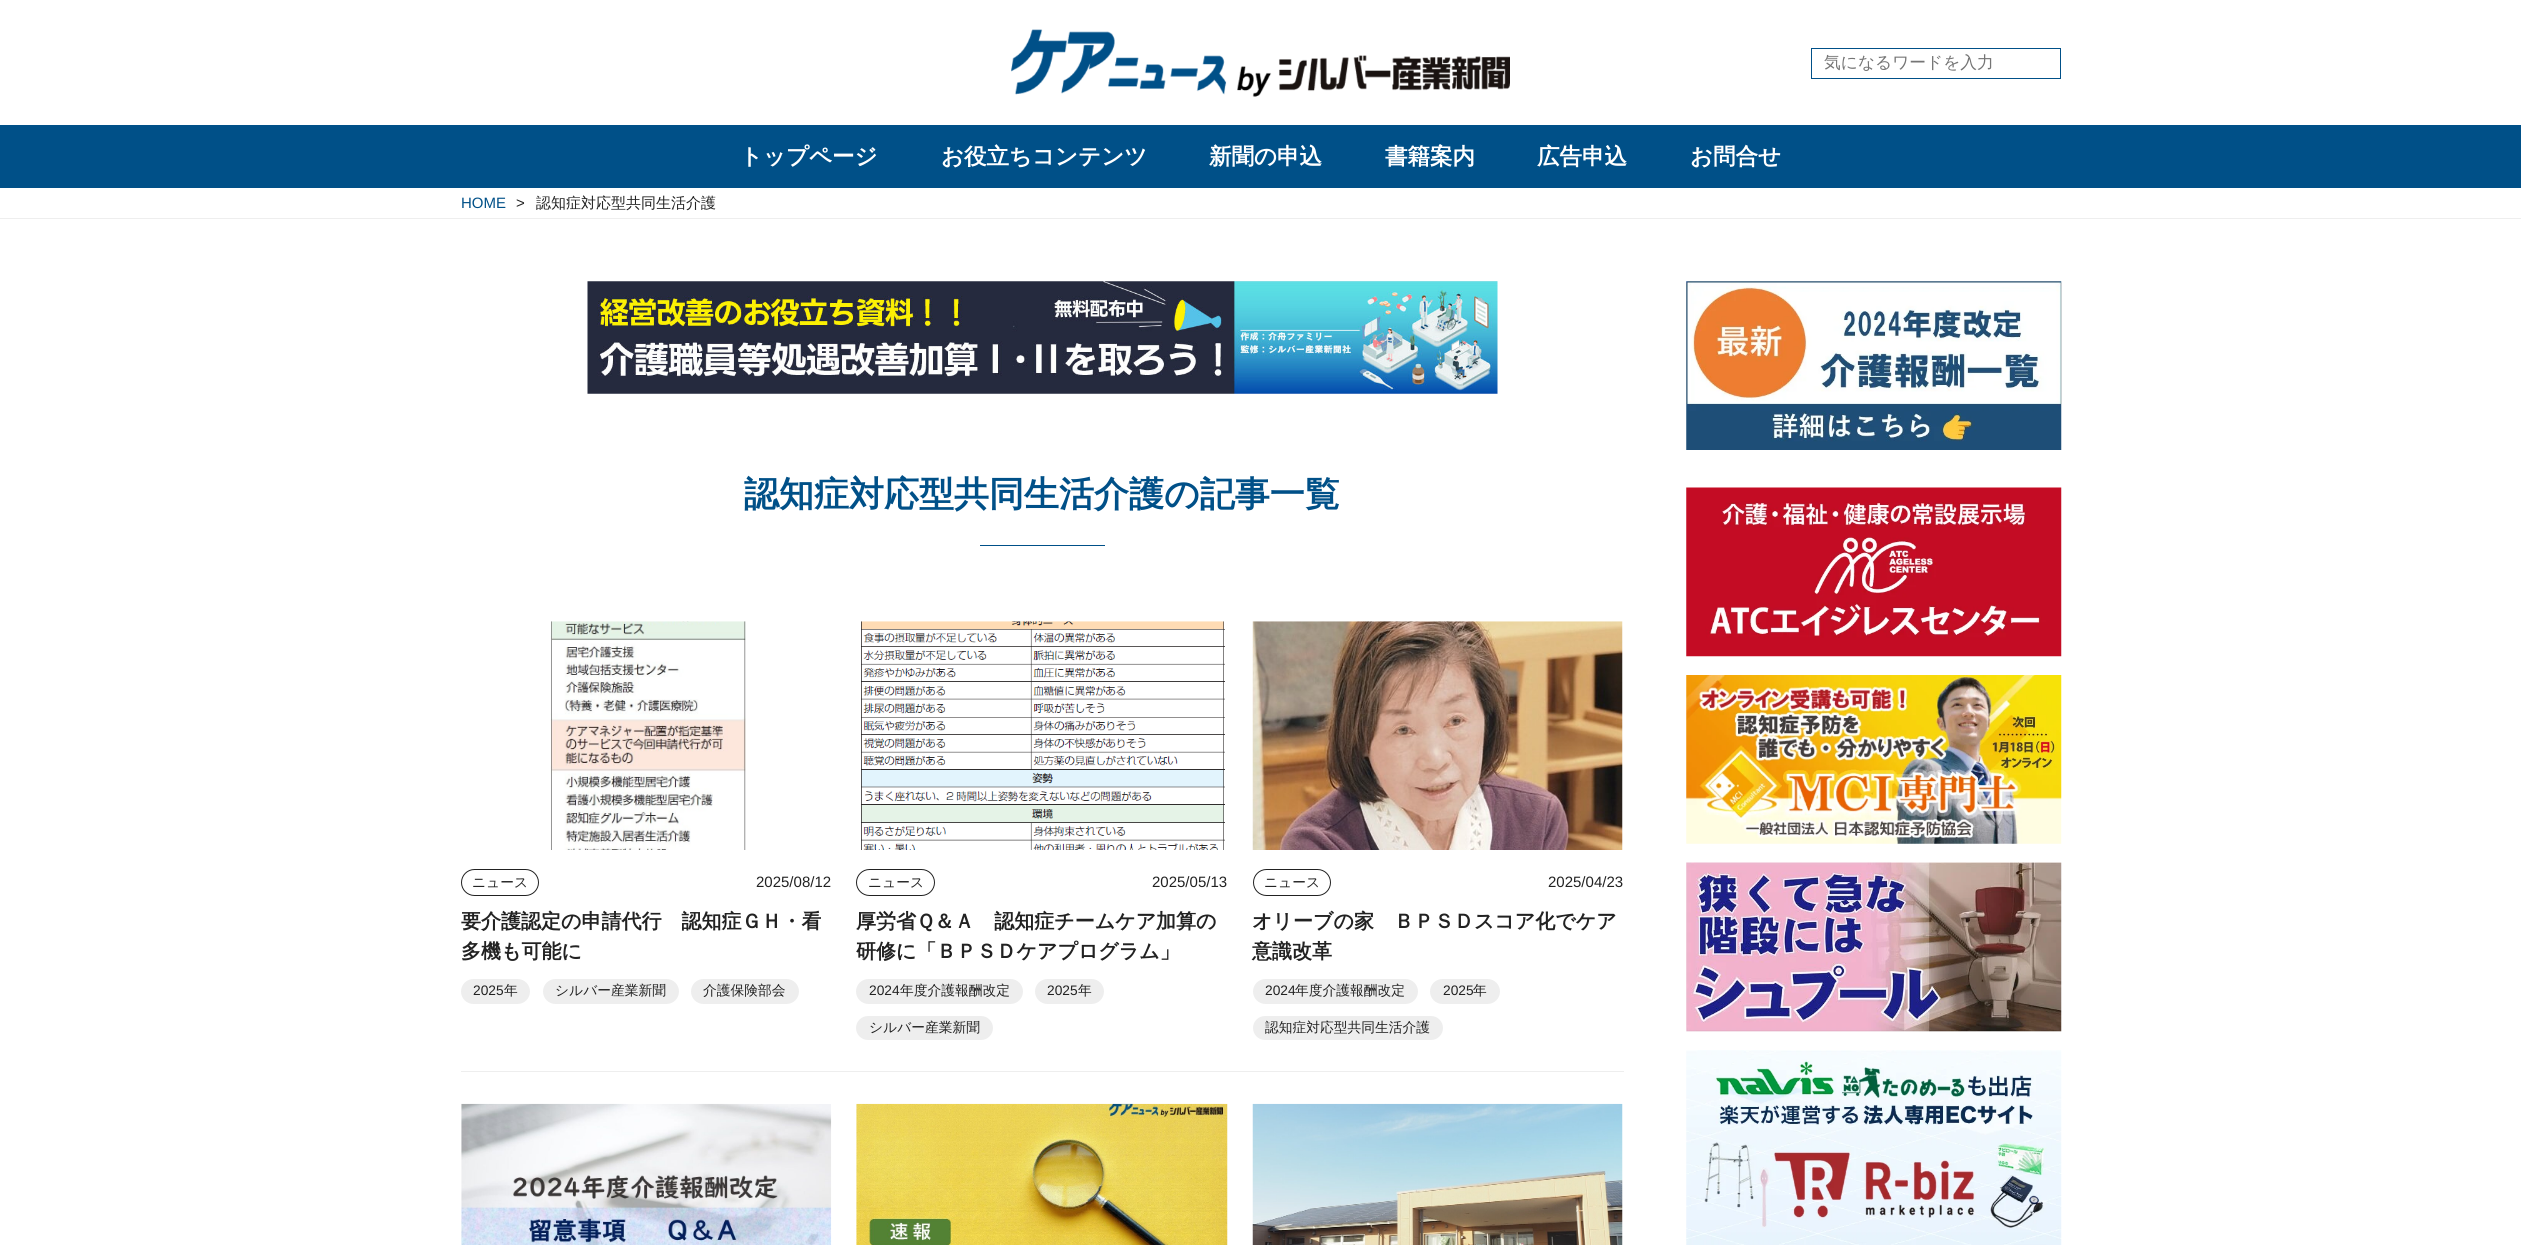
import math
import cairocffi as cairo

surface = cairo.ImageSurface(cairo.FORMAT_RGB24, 2521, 1245)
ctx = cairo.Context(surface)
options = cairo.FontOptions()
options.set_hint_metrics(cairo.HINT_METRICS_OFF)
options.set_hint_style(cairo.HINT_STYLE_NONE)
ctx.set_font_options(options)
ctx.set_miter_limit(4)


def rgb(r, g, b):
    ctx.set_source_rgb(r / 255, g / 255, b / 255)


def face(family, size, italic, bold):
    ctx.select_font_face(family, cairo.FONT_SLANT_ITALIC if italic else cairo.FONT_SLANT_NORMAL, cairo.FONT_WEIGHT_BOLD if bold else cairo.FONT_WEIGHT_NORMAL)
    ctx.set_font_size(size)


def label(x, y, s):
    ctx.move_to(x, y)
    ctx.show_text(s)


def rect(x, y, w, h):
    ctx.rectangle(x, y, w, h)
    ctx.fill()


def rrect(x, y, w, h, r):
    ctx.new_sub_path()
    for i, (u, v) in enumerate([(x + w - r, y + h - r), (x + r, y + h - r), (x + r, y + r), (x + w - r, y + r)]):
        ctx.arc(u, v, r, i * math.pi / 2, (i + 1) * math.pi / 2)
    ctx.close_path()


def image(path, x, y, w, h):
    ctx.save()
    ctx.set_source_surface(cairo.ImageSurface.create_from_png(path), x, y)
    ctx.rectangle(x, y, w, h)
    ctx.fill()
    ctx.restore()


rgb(255, 255, 255)
ctx.paint()
image('image0.png', 1011, 29, 499, 68)
ctx.rectangle(1811.5, 48.5, 249, 30)
rgb(0, 80, 136)
ctx.set_line_width(1)
ctx.stroke()
face('WenQuanYi Zen Hei Medium', 16.75, 0, 0)
rgb(117, 117, 117)
label(1824, 68, '気になるワードを入力')
rgb(0, 80, 136)
rect(0, 125, 2521, 63)
face('WenQuanYi Zen Hei', 22.5, 0, 1)
rgb(255, 255, 255)
label(740, 164, 'トップページ')
label(941, 164, 'お役立ちコンテンツ')
label(1209, 164, '新聞の申込')
label(1385, 164, '書籍案内')
label(1537, 164, '広告申込')
label(1690, 164, 'お問合せ')
rgb(238, 238, 238)
rect(0, 218, 2521, 1)
face('Liberation Sans', 15, 0, 0)
rgb(0, 80, 136)
label(461, 208, 'HOME')
rgb(34, 34, 34)
label(516, 208, '>')
face('WenQuanYi Zen Hei Medium', 15, 0, 0)
label(536, 208, '認知症対応型共同生活介護')
image('image1.png', 587, 281, 911, 113)
face('WenQuanYi Zen Hei', 35, 0, 1)
rgb(0, 80, 136)
label(744, 506, '認知症対応型共同生活介護の記事一覧')
rect(980, 545, 125, 1)
rgb(238, 238, 238)
rect(461, 1071, 1163, 1)
image('image2.png', 550, 621, 196, 229)
rrect(461.5, 869.5, 77, 26, 13)
rgb(34, 34, 34)
ctx.stroke()
face('WenQuanYi Zen Hei Medium', 13.75, 0, 0)
label(472, 887, 'ニュース')
face('Liberation Sans', 15, 0, 0)
label(756, 887, '2025/08/12')
face('WenQuanYi Zen Hei', 20, 0, 1)
label(461, 928, '要介護認定の申請代行　認知症ＧＨ・看')
label(461, 958, '多機も可能に')
rgb(238, 238, 238)
rrect(461, 979, 69, 25, 12.5)
ctx.fill()
face('Liberation Sans', 13.75, 0, 0)
rgb(34, 34, 34)
label(473, 995, '2025')
face('WenQuanYi Zen Hei Medium', 13.75, 0, 0)
label(504, 995, '年')
rgb(238, 238, 238)
rrect(543, 979, 136, 25, 12.5)
ctx.fill()
rgb(34, 34, 34)
label(555, 995, 'シルバー産業新聞')
rgb(238, 238, 238)
rrect(691, 979, 108, 25, 12.5)
ctx.fill()
rgb(34, 34, 34)
label(703, 995, '介護保険部会')
image('image3.png', 861, 621, 364, 229)
rrect(856.5, 869.5, 78, 26, 13)
ctx.stroke()
label(868, 887, 'ニュース')
face('Liberation Sans', 15, 0, 0)
label(1152, 887, '2025/05/13')
face('WenQuanYi Zen Hei', 20, 0, 1)
label(856, 928, '厚労省Ｑ＆Ａ　認知症チームケア加算の')
label(856, 958, '研修に「ＢＰＳＤケアプログラム」')
rgb(238, 238, 238)
rrect(856, 979, 167, 25, 12.5)
ctx.fill()
face('Liberation Sans', 13.75, 0, 0)
rgb(34, 34, 34)
label(869, 995, '2024')
face('WenQuanYi Zen Hei Medium', 13.75, 0, 0)
label(900, 995, '年度介護報酬改定')
rgb(238, 238, 238)
rrect(1035, 979, 69, 25, 12.5)
ctx.fill()
face('Liberation Sans', 13.75, 0, 0)
rgb(34, 34, 34)
label(1047, 995, '2025')
face('WenQuanYi Zen Hei Medium', 13.75, 0, 0)
label(1078, 995, '年')
rgb(238, 238, 238)
rrect(856, 1016, 137, 24, 12)
ctx.fill()
rgb(34, 34, 34)
label(869, 1032, 'シルバー産業新聞')
image('image4.png', 1252, 621, 371, 229)
rrect(1253.5, 869.5, 77, 26, 13)
ctx.stroke()
label(1264, 887, 'ニュース')
face('Liberation Sans', 15, 0, 0)
label(1548, 887, '2025/04/23')
face('WenQuanYi Zen Hei', 20, 0, 1)
label(1252, 928, 'オリーブの家　ＢＰＳＤスコア化でケア')
label(1252, 958, '意識改革')
rgb(238, 238, 238)
rrect(1253, 979, 165, 25, 12.5)
ctx.fill()
face('Liberation Sans', 13.75, 0, 0)
rgb(34, 34, 34)
label(1265, 995, '2024')
face('WenQuanYi Zen Hei Medium', 13.75, 0, 0)
label(1295, 995, '年度介護報酬改定')
rgb(238, 238, 238)
rrect(1430, 979, 70, 25, 12.5)
ctx.fill()
face('Liberation Sans', 13.75, 0, 0)
rgb(34, 34, 34)
label(1443, 995, '2025')
face('WenQuanYi Zen Hei Medium', 13.75, 0, 0)
label(1473, 995, '年')
rgb(238, 238, 238)
rrect(1253, 1016, 190, 24, 12)
ctx.fill()
rgb(34, 34, 34)
label(1265, 1032, '認知症対応型共同生活介護')
image('image5.png', 461, 1103, 371, 142)
image('image6.png', 856, 1103, 372, 142)
image('image7.png', 1252, 1103, 371, 142)
image('image8.png', 1686, 281, 376, 169)
image('image9.png', 1686, 487, 376, 170)
image('image10.png', 1686, 675, 376, 169)
image('image11.png', 1686, 862, 376, 170)
image('image12.png', 1686, 1050, 376, 195)
surface.write_to_png('render.png')
